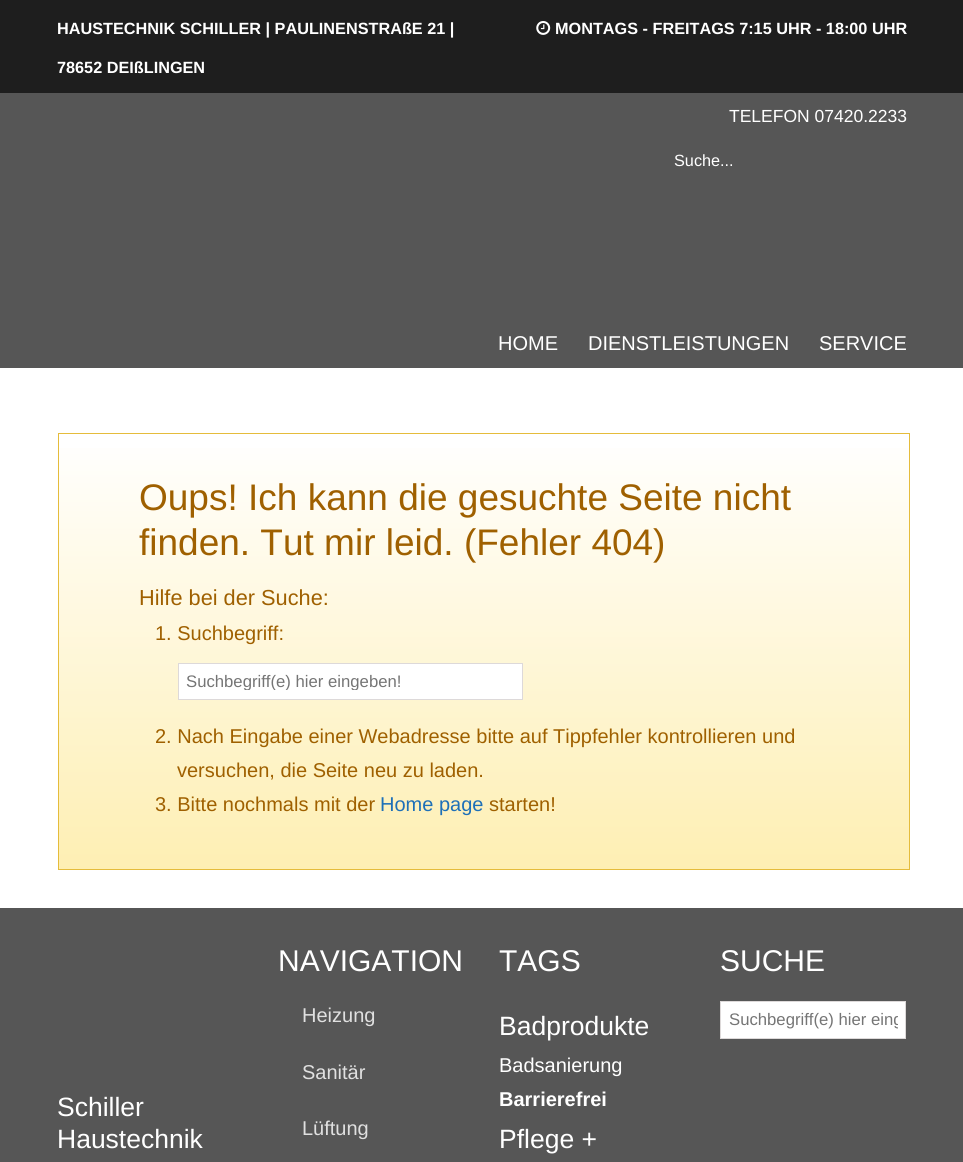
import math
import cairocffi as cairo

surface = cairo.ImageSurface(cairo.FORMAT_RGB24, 963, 1162)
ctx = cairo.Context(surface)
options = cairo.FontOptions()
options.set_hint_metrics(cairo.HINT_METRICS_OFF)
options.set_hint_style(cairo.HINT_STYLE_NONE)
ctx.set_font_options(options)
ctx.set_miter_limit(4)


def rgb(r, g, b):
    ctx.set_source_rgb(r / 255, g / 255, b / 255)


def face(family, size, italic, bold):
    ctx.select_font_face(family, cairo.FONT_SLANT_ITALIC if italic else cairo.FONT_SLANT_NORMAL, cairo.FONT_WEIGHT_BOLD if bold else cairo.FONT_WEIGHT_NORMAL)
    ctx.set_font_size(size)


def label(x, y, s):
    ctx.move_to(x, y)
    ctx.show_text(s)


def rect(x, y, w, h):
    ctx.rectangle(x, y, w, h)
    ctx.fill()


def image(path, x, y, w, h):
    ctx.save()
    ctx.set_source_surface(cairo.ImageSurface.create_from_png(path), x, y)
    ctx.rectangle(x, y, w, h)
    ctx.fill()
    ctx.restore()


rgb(255, 255, 255)
ctx.paint()
rgb(86, 86, 86)
rect(0, 93, 963, 275)
rgb(30, 30, 30)
rect(0, 0, 963, 93)
face('Liberation Sans', 16.25, 0, 1)
rgb(255, 255, 255)
label(57, 34, 'HAUSTECHNIK SCHILLER | PAULINENSTRAßE 21 |')
label(57, 73, '78652 DEIßLINGEN')
image('image0.png', 536, 21, 15, 14)
label(555, 34, 'MONTAGS - FREITAGS 7:15 UHR - 18:00 UHR')
face('Liberation Sans', 17.5, 0, 0)
label(729, 122, 'TELEFON 07420.2233')
face('Liberation Sans', 16.25, 0, 0)
label(674, 166, 'Suche...')
face('Liberation Sans', 20, 0, 0)
label(498, 350, 'HOME')
label(588, 350, 'DIENSTLEISTUNGEN')
label(819, 350, 'SERVICE')
gradient = cairo.LinearGradient(484, 434, 484, 869)
gradient.add_color_stop_rgba(0, 1, 1, 1, 1)
gradient.add_color_stop_rgba(1, 0.996, 0.937, 0.702, 1)
ctx.set_source(gradient)
rect(59, 448, 850, 421)
ctx.rectangle(58.5, 433.5, 851, 436)
rgb(229, 188, 59)
ctx.set_line_width(1)
ctx.stroke()
face('Liberation Sans', 37, 0, 0)
rgb(159, 96, 0)
label(139, 510, 'Oups! Ich kann die gesuchte Seite nicht')
label(139, 555, 'finden. Tut mir leid. (Fehler 404)')
face('Liberation Sans', 21.75, 0, 0)
label(139, 605, 'Hilfe bei der Suche:')
face('Liberation Sans', 20, 0, 0)
label(155, 640, '1. Suchbegriff:')
rgb(255, 255, 255)
ctx.rectangle(178.5, 663.5, 344, 36)
ctx.fill_preserve()
rgb(221, 217, 217)
ctx.stroke()
ctx.save()
ctx.rectangle(186, 671, 328, 19)
ctx.clip()
face('Liberation Sans', 16.7, 0, 0)
rgb(117, 117, 117)
label(186, 687, 'Suchbegriff(e) hier eingeben!')
ctx.restore()
rgb(159, 96, 0)
label(155, 743, '2. Nach Eingabe einer Webadresse bitte auf Tippfehler kontrollieren und')
label(177, 777, 'versuchen, die Seite neu zu laden.')
label(155, 811, '3. Bitte nochmals mit der')
rgb(30, 112, 184)
label(380, 811, 'Home page')
rgb(159, 96, 0)
label(489, 811, 'starten!')
rgb(86, 86, 86)
rect(0, 908, 963, 254)
face('Liberation Sans', 30, 0, 0)
rgb(255, 255, 255)
label(278, 971, 'NAVIGATION')
face('Liberation Sans', 20, 0, 0)
rgb(224, 224, 224)
label(302, 1022, 'Heizung')
label(302, 1079, 'Sanitär')
label(302, 1135, 'Lüftung')
face('Liberation Sans', 30, 0, 0)
rgb(255, 255, 255)
label(499, 971, 'TAGS')
face('Liberation Sans', 26.5, 0, 0)
label(499, 1035, 'Badprodukte')
face('Liberation Sans', 20, 0, 0)
label(499, 1072, 'Badsanierung')
face('Liberation Sans', 20, 0, 1)
label(499, 1106, 'Barrierefrei')
face('Liberation Sans', 26.5, 0, 0)
label(499, 1148, 'Pflege +')
face('Liberation Sans', 30, 0, 0)
label(720, 971, 'SUCHE')
ctx.rectangle(720.5, 1001.5, 185, 37)
ctx.fill_preserve()
rgb(221, 217, 217)
ctx.stroke()
ctx.save()
ctx.rectangle(729, 1010, 169, 19)
ctx.clip()
face('Liberation Sans', 16.7, 0, 0)
rgb(117, 117, 117)
label(729, 1025, 'Suchbegriff(e) hier eing')
ctx.restore()
face('Liberation Sans', 26.5, 0, 0)
rgb(255, 255, 255)
label(57, 1116, 'Schiller')
label(57, 1148, 'Haustechnik')
surface.write_to_png('render.png')
